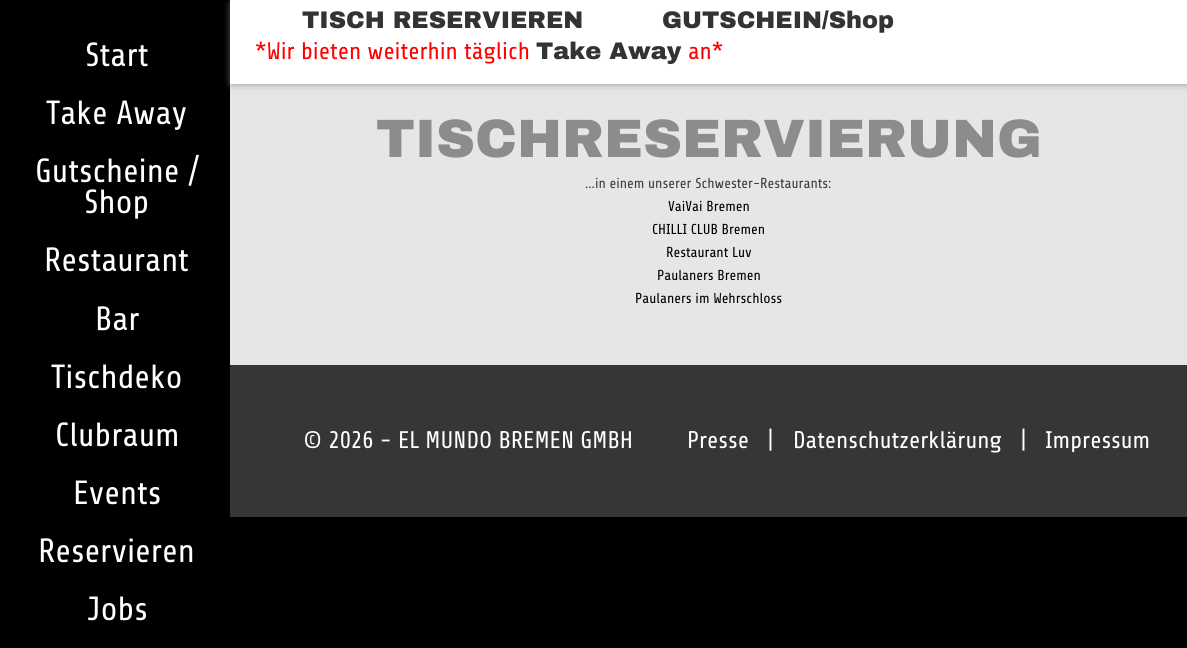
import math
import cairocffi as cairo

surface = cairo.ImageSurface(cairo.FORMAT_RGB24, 1187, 648)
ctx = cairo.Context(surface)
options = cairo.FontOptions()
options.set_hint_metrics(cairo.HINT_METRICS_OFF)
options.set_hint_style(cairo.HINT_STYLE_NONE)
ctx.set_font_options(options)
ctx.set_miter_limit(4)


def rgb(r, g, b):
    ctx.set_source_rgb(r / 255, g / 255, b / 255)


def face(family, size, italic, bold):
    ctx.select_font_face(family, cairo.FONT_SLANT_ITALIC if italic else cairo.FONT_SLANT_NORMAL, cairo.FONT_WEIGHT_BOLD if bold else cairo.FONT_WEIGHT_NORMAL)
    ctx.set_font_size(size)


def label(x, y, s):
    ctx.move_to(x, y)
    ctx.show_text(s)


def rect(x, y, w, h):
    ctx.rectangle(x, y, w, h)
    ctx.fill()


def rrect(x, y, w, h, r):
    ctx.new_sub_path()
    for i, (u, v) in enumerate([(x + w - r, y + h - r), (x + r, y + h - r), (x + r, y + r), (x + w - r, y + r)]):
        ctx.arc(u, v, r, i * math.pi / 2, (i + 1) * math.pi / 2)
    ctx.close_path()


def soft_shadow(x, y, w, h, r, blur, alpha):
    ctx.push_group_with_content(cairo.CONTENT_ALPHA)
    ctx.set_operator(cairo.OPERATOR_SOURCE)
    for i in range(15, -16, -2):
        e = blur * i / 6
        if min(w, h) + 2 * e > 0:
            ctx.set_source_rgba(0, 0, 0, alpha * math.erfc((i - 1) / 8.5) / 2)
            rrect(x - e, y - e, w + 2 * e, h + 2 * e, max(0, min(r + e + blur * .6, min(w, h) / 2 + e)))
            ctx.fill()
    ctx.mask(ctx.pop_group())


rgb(0, 0, 0)
ctx.paint()
rgb(230, 230, 230)
rect(230, 84, 957, 281)
rgb(146, 146, 146)
soft_shadow(232, 4, 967, 80, 0, 4, 1)
rgb(255, 255, 255)
rect(230, 0, 957, 84)
face('Archivo Black', 24, 0, 0)
rgb(51, 51, 51)
label(302, 28, 'TISCH RESERVIEREN')
label(662, 28, 'GUTSCHEIN/Shop')
face('Share', 24, 0, 0)
rgb(255, 0, 0)
label(255, 59, '*Wir bieten weiterhin täglich')
face('Archivo Black', 24, 0, 0)
rgb(51, 51, 51)
label(536, 59, 'Take Away')
face('Share', 24, 0, 0)
rgb(255, 0, 0)
label(688, 59, 'an*')
face('Share', 33.5, 0, 0)
rgb(255, 255, 255)
label(85, 66, 'Start')
label(46, 124, 'Take Away')
label(35, 182, 'Gutscheine /')
label(84, 213, 'Shop')
label(44, 271, 'Restaurant')
label(95, 330, 'Bar')
label(51, 388, 'Tischdeko')
label(55, 446, 'Clubraum')
label(73, 504, 'Events')
label(38, 562, 'Reservieren')
label(87, 620, 'Jobs')
face('Archivo Black', 54, 0, 0)
rgb(141, 139, 140)
label(376, 157, 'TISCHRESERVIERUNG')
face('Share', 14.4, 0, 0)
rgb(61, 60, 56)
label(585, 188, '...in einem unserer Schwester-Restaurants:')
rgb(0, 0, 0)
label(668, 211, 'VaiVai Bremen')
label(652, 234, 'CHILLI CLUB Bremen')
label(666, 257, 'Restaurant Luv')
label(657, 280, 'Paulaners Bremen')
label(635, 303, 'Paulaners im Wehrschloss')
rgb(54, 54, 54)
rect(230, 365, 957, 152)
face('Share', 24, 0, 0)
rgb(255, 255, 255)
label(303, 448, '© 2026 - EL MUNDO BREMEN GMBH')
label(687, 448, 'Presse')
label(767, 448, '|')
label(793, 448, 'Datenschutzerklärung')
label(1020, 448, '|')
label(1045, 448, 'Impressum')
surface.write_to_png('render.png')
